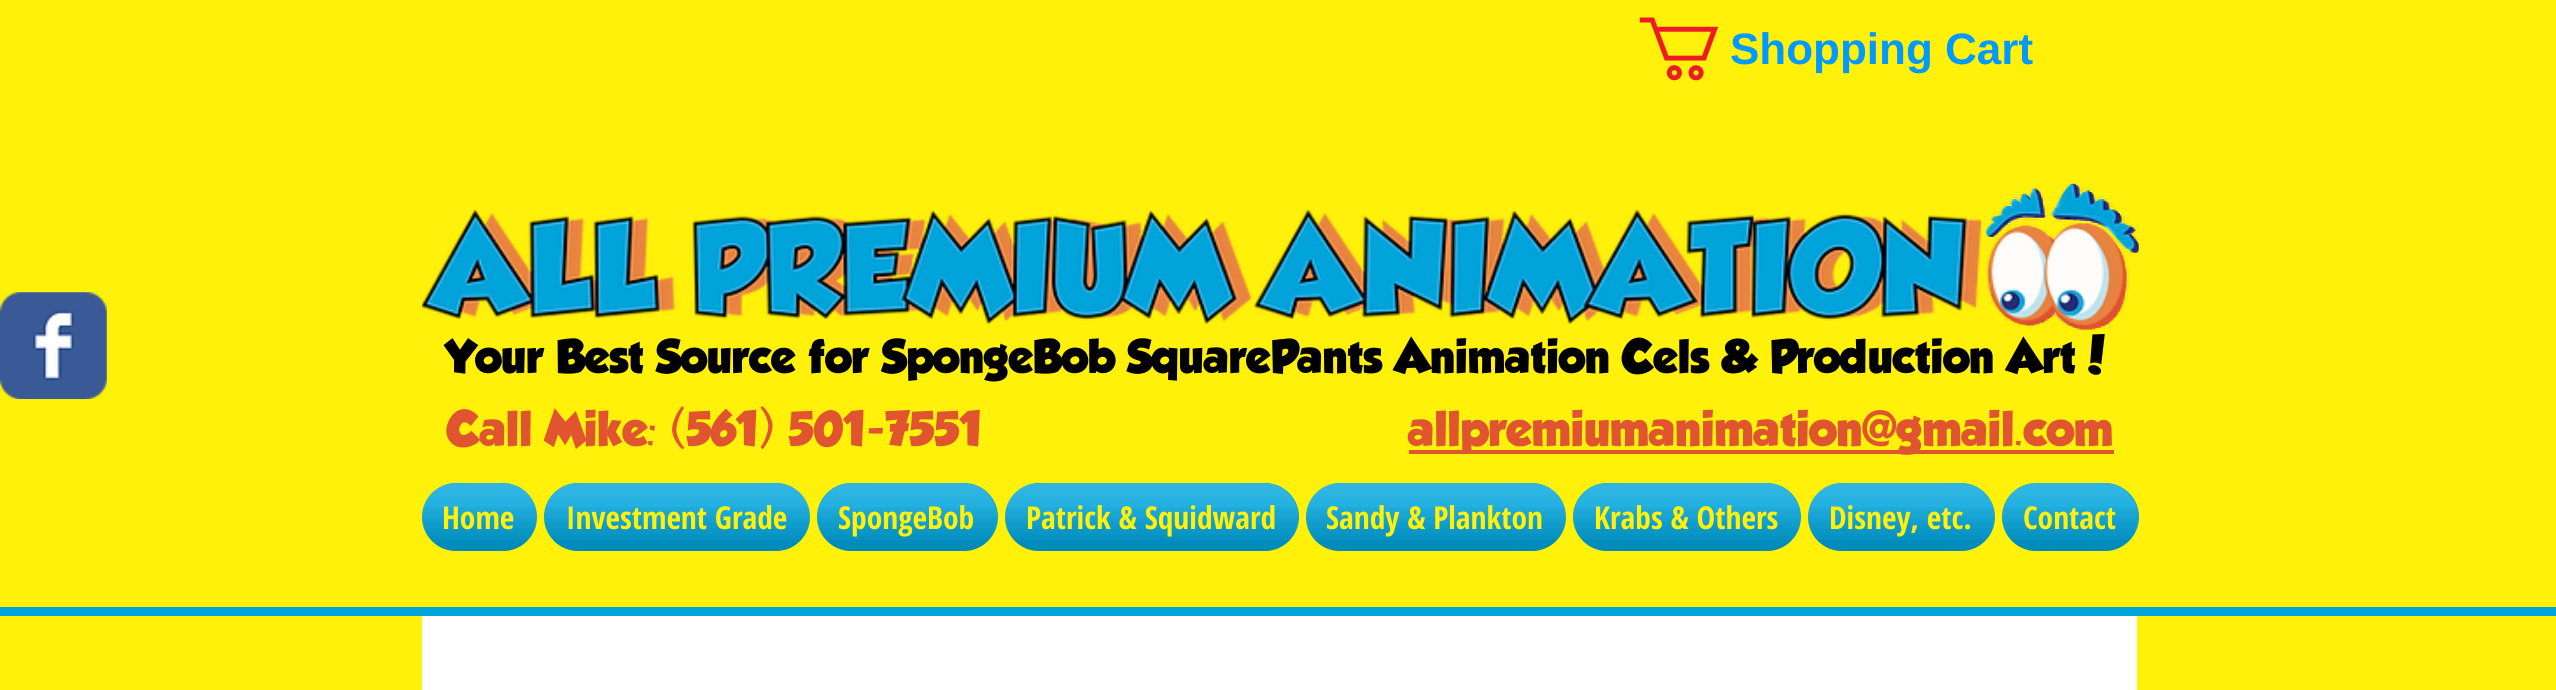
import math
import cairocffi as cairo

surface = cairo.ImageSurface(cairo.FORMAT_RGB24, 2556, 690)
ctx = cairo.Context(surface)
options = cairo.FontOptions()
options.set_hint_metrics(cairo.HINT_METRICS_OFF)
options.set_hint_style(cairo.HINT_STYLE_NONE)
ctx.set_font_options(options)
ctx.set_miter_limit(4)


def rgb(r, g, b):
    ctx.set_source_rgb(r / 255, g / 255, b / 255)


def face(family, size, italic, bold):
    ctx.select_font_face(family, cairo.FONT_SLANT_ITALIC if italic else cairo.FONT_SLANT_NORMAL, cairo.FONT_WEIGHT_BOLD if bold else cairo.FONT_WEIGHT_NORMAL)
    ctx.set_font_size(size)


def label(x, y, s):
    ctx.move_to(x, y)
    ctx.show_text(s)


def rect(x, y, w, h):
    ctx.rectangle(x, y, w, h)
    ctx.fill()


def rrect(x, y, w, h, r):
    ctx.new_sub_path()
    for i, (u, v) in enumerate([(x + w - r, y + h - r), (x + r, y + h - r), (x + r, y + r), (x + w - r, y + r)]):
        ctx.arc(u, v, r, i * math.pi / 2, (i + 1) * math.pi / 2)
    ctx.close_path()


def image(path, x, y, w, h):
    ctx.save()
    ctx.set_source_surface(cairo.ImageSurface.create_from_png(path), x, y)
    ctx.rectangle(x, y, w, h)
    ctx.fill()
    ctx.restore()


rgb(255, 241, 10)
ctx.paint()
image('image0.png', 0, 292, 107, 107)
image('image1.png', 1639, 17, 80, 64)
face('Liberation Sans', 44, 0, 1)
rgb(0, 153, 255)
label(1730, 64, 'Shopping Cart')
image('image2.png', 421, 210, 1560, 114)
image('image3.png', 1985, 183, 152, 147)
image('image4.png', 1987, 183, 152, 147)
image('image5.png', 1987, 183, 152, 147)
image('image6.png', 1987, 183, 152, 147)
image('image7.png', 1987, 183, 152, 147)
image('image8.png', 1987, 183, 152, 147)
image('image9.png', 1987, 183, 152, 147)
face('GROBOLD', 42, 0, 1)
rgb(0, 0, 0)
label(446, 373, 'Your Best Source for SpongeBob SquarePants Animation Cels & Production Art!')
face('GROBOLD', 43.75, 0, 1)
rgb(224, 84, 48)
label(447, 446, 'Call Mike: (561) 501-7551')
rect(1409, 450, 705, 4)
label(1408, 446, 'allpremiumanimation@gmail.com')
rgb(0, 164, 219)
rrect(422, 483, 115, 68, 34)
ctx.fill()
image('image10.png', 422, 483, 115, 57)
image('image11.png', 422, 507, 115, 44)
face('Open Sans Condensed', 31.5, 0, 1)
rgb(255, 241, 10)
label(442, 529, 'Home')
rgb(0, 164, 219)
rrect(544, 483, 266, 68, 34)
ctx.fill()
image('image12.png', 544, 483, 266, 57)
image('image13.png', 545, 507, 265, 44)
rgb(255, 241, 10)
label(566, 529, 'Investment Grade')
rgb(0, 164, 219)
rrect(817, 483, 181, 68, 34)
ctx.fill()
image('image14.png', 817, 483, 180, 57)
image('image15.png', 817, 507, 180, 44)
rgb(255, 241, 10)
label(838, 529, 'SpongeBob')
rgb(0, 164, 219)
rrect(1005, 483, 294, 68, 34)
ctx.fill()
image('image16.png', 1005, 483, 293, 57)
image('image17.png', 1005, 507, 293, 44)
rgb(255, 241, 10)
label(1026, 529, 'Patrick & Squidward')
rgb(0, 164, 219)
rrect(1306, 483, 260, 68, 34)
ctx.fill()
image('image18.png', 1306, 483, 260, 57)
image('image19.png', 1306, 507, 260, 44)
rgb(255, 241, 10)
label(1326, 529, 'Sandy & Plankton')
rgb(0, 164, 219)
rrect(1573, 483, 228, 68, 34)
ctx.fill()
image('image20.png', 1573, 483, 228, 57)
image('image21.png', 1574, 507, 227, 44)
rgb(255, 241, 10)
label(1594, 529, 'Krabs & Others')
rgb(0, 164, 219)
rrect(1808, 483, 187, 68, 34)
ctx.fill()
image('image22.png', 1808, 483, 187, 57)
image('image23.png', 1808, 507, 187, 44)
rgb(255, 241, 10)
label(1829, 529, 'Disney, etc.')
rgb(0, 164, 219)
rrect(2002, 483, 137, 68, 34)
ctx.fill()
image('image24.png', 2002, 483, 136, 57)
image('image25.png', 2002, 507, 136, 44)
rgb(255, 241, 10)
label(2023, 529, 'Contact')
rgb(0, 164, 219)
rect(0, 607, 2556, 9)
rgb(255, 255, 255)
rect(422, 616, 1715, 74)
surface.write_to_png('render.png')
